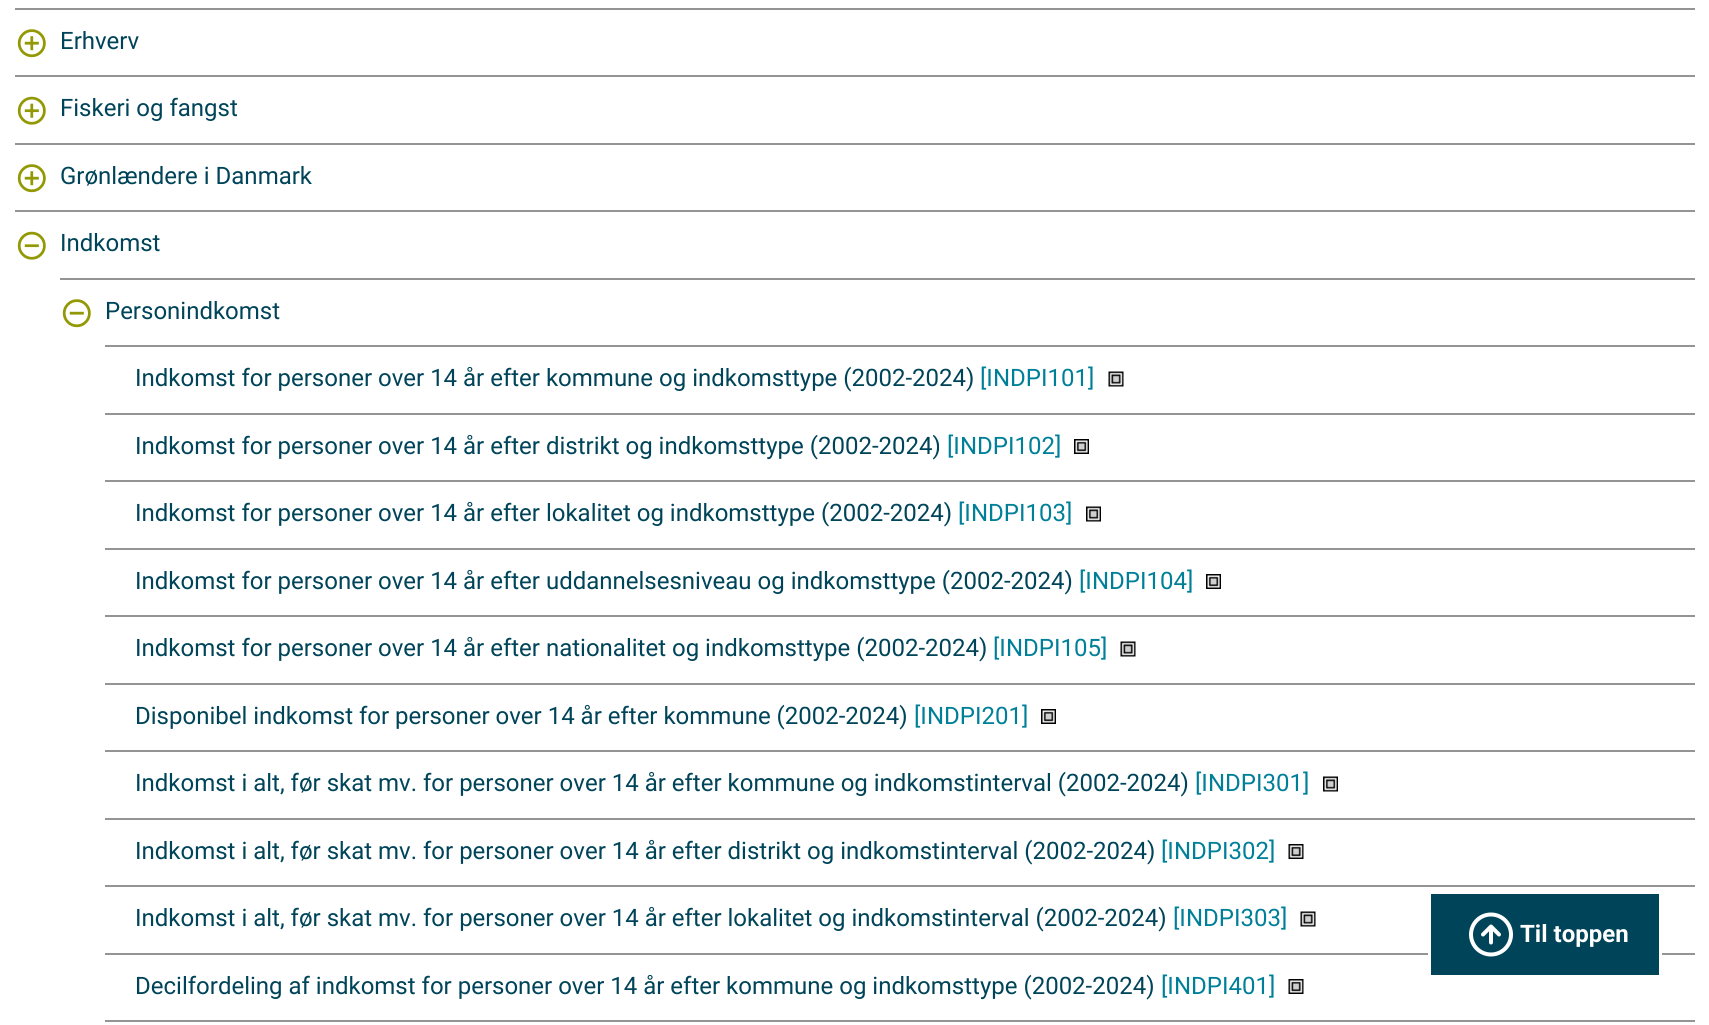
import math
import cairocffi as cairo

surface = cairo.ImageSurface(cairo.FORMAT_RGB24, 1709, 1025)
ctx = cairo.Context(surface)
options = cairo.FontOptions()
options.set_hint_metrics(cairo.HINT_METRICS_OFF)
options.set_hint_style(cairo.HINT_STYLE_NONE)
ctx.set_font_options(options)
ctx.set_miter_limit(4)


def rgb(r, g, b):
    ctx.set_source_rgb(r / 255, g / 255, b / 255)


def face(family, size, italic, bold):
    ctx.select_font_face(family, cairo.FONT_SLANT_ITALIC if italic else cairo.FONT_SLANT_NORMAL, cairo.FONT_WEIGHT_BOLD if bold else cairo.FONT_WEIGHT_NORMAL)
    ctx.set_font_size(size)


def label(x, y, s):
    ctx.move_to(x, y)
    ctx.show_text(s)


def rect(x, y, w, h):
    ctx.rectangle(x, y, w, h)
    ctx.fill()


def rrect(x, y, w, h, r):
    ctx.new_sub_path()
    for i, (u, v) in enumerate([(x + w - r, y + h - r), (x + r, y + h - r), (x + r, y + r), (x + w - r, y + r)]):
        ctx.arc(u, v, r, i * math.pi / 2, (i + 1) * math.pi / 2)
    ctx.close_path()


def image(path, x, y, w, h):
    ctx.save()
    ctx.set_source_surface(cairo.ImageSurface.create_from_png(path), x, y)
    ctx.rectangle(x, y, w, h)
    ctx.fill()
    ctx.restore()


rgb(255, 255, 255)
ctx.paint()
rgb(148, 148, 148)
rect(15, 8, 1680, 2)
image('image0.png', 17, 29, 29, 29)
face('Roboto', 24, 0, 0)
rgb(0, 68, 89)
label(60, 49, 'Erhverv')
rgb(148, 148, 148)
rect(15, 75, 1680, 2)
image('image1.png', 17, 96, 29, 29)
rgb(0, 68, 89)
label(60, 116, 'Fiskeri og fangst')
rgb(148, 148, 148)
rect(15, 143, 1680, 2)
image('image0.png', 17, 164, 29, 29)
rgb(0, 68, 89)
label(60, 184, 'Grønlændere i Danmark')
rgb(148, 148, 148)
rect(15, 210, 1680, 2)
image('image2.png', 17, 231, 29, 29)
rgb(0, 68, 89)
label(60, 251, 'Indkomst')
rgb(148, 148, 148)
rect(60, 278, 1635, 2)
image('image3.png', 62, 299, 29, 29)
rgb(0, 68, 89)
label(105, 319, 'Personindkomst')
rgb(148, 148, 148)
rect(105, 345, 1590, 2)
rgb(0, 68, 89)
label(135, 386, 'Indkomst for personer over 14 år efter kommune og indkomsttype (2002-2024)')
rgb(0, 127, 153)
label(980, 386, '[INDPI101]')
image('image4.png', 1108, 371, 16, 16)
rgb(148, 148, 148)
rect(105, 413, 1590, 2)
rgb(0, 68, 89)
label(135, 454, 'Indkomst for personer over 14 år efter distrikt og indkomsttype (2002-2024)')
rgb(0, 127, 153)
label(947, 454, '[INDPI102]')
image('image5.png', 1074, 439, 15, 15)
rgb(148, 148, 148)
rect(105, 480, 1590, 2)
rgb(0, 68, 89)
label(135, 521, 'Indkomst for personer over 14 år efter lokalitet og indkomsttype (2002-2024)')
rgb(0, 127, 153)
label(958, 521, '[INDPI103]')
image('image6.png', 1086, 506, 15, 16)
rgb(148, 148, 148)
rect(105, 548, 1590, 2)
rgb(0, 68, 89)
label(135, 589, 'Indkomst for personer over 14 år efter uddannelsesniveau og indkomsttype (2002-2024)')
rgb(0, 127, 153)
label(1079, 589, '[INDPI104]')
image('image5.png', 1206, 574, 15, 15)
rgb(148, 148, 148)
rect(105, 615, 1590, 2)
rgb(0, 68, 89)
label(135, 656, 'Indkomst for personer over 14 år efter nationalitet og indkomsttype (2002-2024)')
rgb(0, 127, 153)
label(993, 656, '[INDPI105]')
image('image7.png', 1120, 641, 16, 16)
rgb(148, 148, 148)
rect(105, 683, 1590, 2)
rgb(0, 68, 89)
label(135, 724, 'Disponibel indkomst for personer over 14 år efter kommune (2002-2024)')
rgb(0, 127, 153)
label(914, 724, '[INDPI201]')
image('image5.png', 1041, 709, 15, 15)
rgb(148, 148, 148)
rect(105, 750, 1590, 2)
rgb(0, 68, 89)
label(135, 791, 'Indkomst i alt, før skat mv. for personer over 14 år efter kommune og indkomstinterval (2002-2024)')
rgb(0, 127, 153)
label(1195, 791, '[INDPI301]')
image('image6.png', 1323, 776, 15, 16)
rgb(148, 148, 148)
rect(105, 818, 1590, 2)
rgb(0, 68, 89)
label(135, 859, 'Indkomst i alt, før skat mv. for personer over 14 år efter distrikt og indkomstinterval (2002-2024)')
rgb(0, 127, 153)
label(1161, 859, '[INDPI302]')
image('image8.png', 1288, 844, 16, 15)
rgb(148, 148, 148)
rect(105, 885, 1590, 2)
rgb(0, 68, 89)
label(135, 926, 'Indkomst i alt, før skat mv. for personer over 14 år efter lokalitet og indkomstinterval (2002-2024)')
rgb(0, 127, 153)
label(1173, 926, '[INDPI303]')
image('image7.png', 1300, 911, 16, 16)
rgb(148, 148, 148)
rect(105, 953, 1590, 2)
rgb(0, 68, 89)
label(135, 994, 'Decilfordeling af indkomst for personer over 14 år efter kommune og indkomsttype (2002-2024)')
rgb(0, 127, 153)
label(1161, 994, '[INDPI401]')
image('image8.png', 1288, 979, 16, 15)
rgb(148, 148, 148)
rect(105, 1020, 1590, 2)
rgb(0, 68, 89)
rrect(1429.5, 892.5, 231, 84, 1.5)
ctx.fill_preserve()
rgb(255, 255, 255)
ctx.set_line_width(3)
ctx.stroke()
ctx.arc(1491, 934.5, 20, 0, 2 * math.pi)
ctx.set_line_width(4)
ctx.stroke()
ctx.new_path()
ctx.move_to(1499, 934.5)
ctx.line_to(1491, 926.5)
ctx.line_to(1483, 934.5)
ctx.move_to(1491, 942.5)
ctx.line_to(1491, 926.5)
ctx.set_line_cap(cairo.LINE_CAP_ROUND)
ctx.set_line_join(cairo.LINE_JOIN_ROUND)
ctx.stroke()
face('Roboto', 24, 0, 1)
label(1520, 942, 'Til toppen')
surface.write_to_png('render.png')
